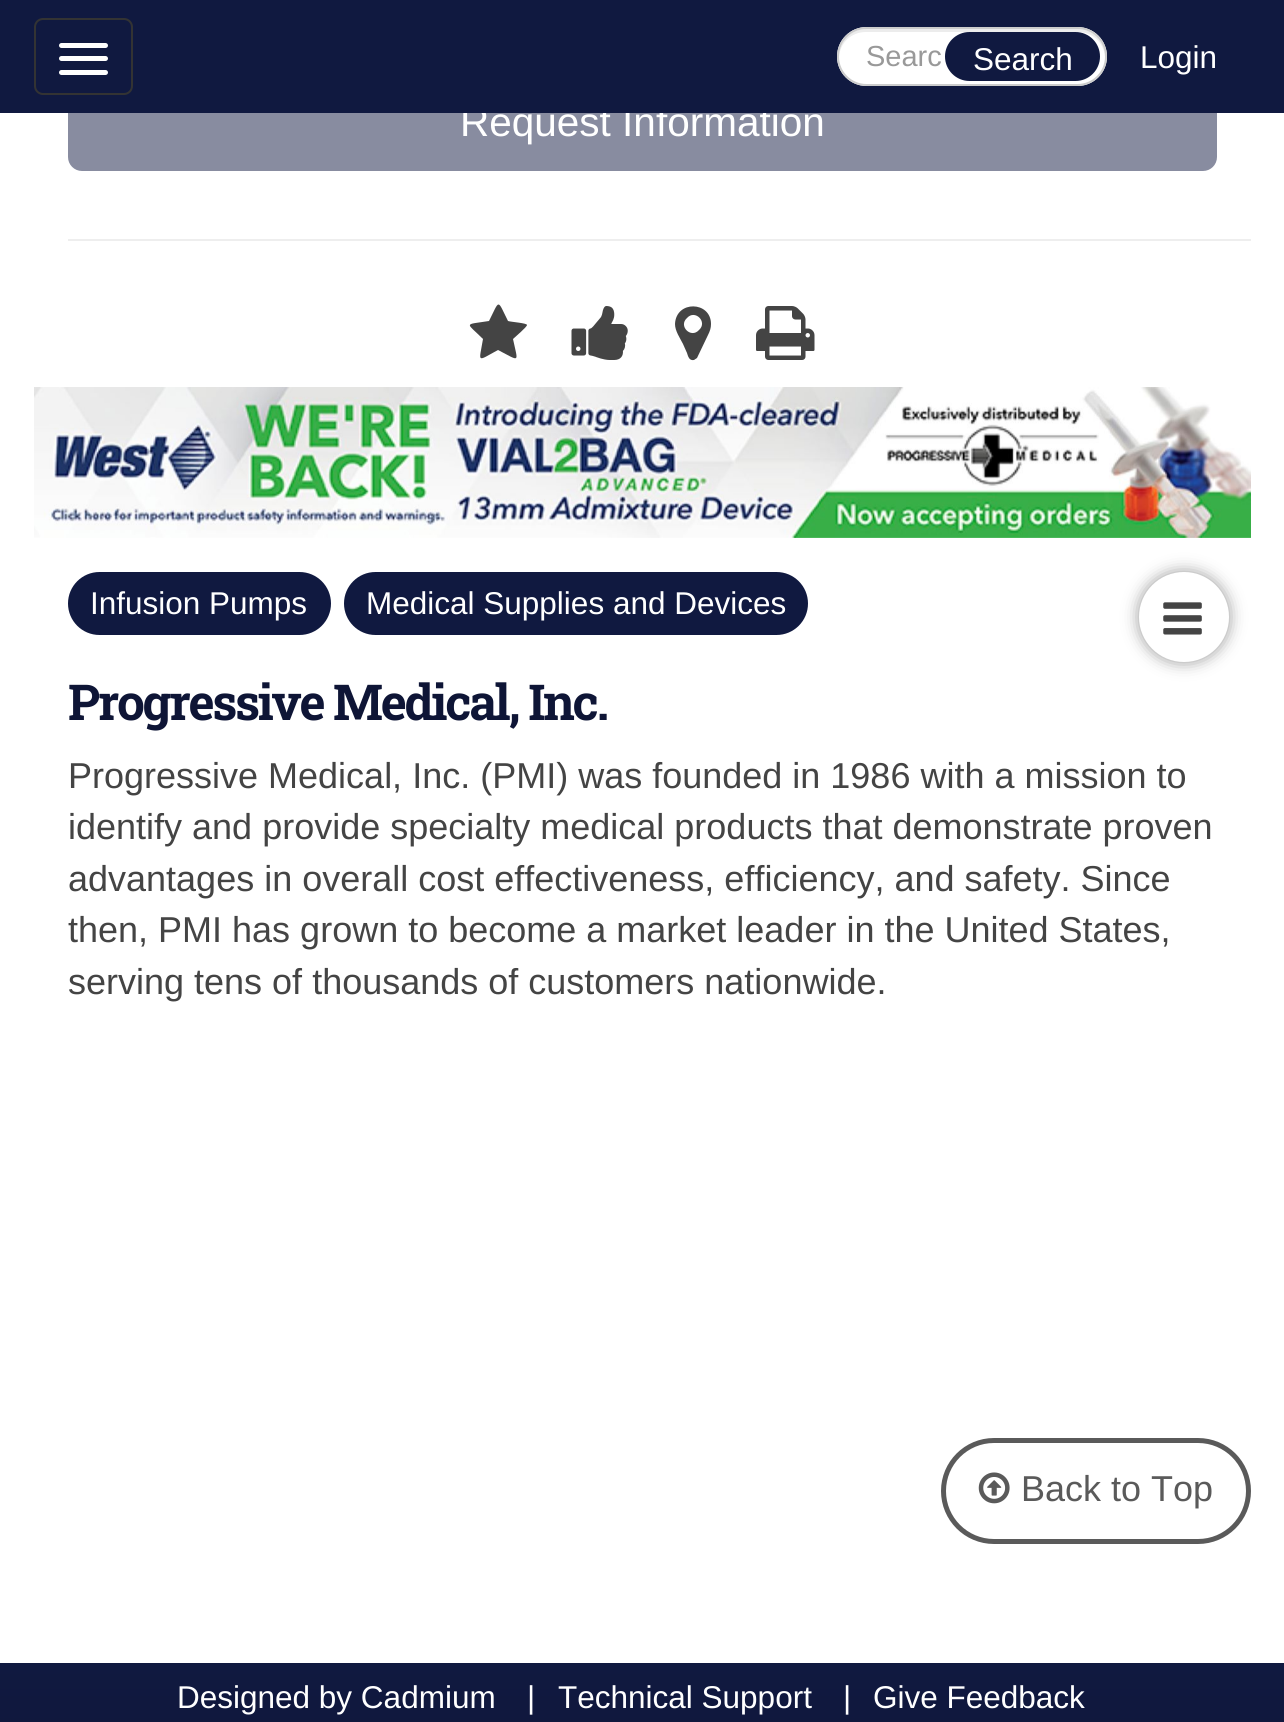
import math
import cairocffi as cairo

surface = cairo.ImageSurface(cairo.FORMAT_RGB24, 1284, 1722)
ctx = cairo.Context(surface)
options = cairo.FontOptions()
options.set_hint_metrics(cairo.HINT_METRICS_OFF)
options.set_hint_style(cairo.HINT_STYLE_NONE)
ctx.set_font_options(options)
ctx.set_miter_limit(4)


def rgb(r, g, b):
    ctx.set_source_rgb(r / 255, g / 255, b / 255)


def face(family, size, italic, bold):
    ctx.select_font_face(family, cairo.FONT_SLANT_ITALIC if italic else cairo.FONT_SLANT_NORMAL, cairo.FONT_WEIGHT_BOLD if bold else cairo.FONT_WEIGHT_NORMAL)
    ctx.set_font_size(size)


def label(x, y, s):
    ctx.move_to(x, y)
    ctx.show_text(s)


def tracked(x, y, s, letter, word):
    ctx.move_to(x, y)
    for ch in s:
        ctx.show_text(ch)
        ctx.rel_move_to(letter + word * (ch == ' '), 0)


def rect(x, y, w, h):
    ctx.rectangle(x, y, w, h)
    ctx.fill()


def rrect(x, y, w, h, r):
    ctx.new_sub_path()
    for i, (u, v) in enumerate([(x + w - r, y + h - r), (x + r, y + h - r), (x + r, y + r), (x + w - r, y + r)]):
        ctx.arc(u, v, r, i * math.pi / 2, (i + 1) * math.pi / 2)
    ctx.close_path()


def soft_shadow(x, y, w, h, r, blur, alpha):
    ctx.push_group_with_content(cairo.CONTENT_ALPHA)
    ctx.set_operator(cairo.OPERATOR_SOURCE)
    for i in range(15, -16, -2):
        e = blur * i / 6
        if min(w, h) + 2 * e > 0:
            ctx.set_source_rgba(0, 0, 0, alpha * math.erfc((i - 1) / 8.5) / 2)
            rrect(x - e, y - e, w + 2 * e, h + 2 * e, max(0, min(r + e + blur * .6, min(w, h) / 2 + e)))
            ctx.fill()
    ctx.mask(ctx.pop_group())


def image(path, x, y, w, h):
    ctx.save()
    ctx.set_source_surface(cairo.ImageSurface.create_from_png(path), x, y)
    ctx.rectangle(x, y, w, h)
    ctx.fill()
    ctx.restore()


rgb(255, 255, 255)
ctx.paint()
rgb(136, 140, 160)
rrect(68, 72, 1149, 99, 14)
ctx.fill()
face('Liberation Sans', 40.5, 0, 0)
rgb(255, 255, 255)
label(460, 136, 'Request Information')
rgb(16, 25, 64)
rect(0, 0, 1284, 113)
rrect(35, 19, 97, 75, 8)
rgb(51, 51, 51)
ctx.stroke()
rgb(255, 255, 255)
rrect(59, 43, 49, 5, 2.5)
ctx.fill()
rrect(59, 56, 49, 5, 2.5)
ctx.fill()
rrect(59, 70, 49, 5, 2.5)
ctx.fill()
rrect(837, 27, 270, 59, 29.5)
ctx.fill()
rgb(236, 236, 236)
ctx.new_path()
ctx.move_to(866, 32)
ctx.line_to(1078, 32)
ctx.curve_to(1093, 32, 1104, 43, 1105, 57)
ctx.line_to(1105, 56)
ctx.curve_to(1105, 41, 1093, 29, 1078, 29)
ctx.line_to(866, 29)
ctx.curve_to(851, 29, 839, 41, 839, 56)
ctx.line_to(839, 57)
ctx.curve_to(840, 43, 851, 32, 866, 32)
ctx.close_path()
ctx.fill()
rrect(838, 28, 268, 57, 28.5)
rgb(204, 204, 204)
ctx.stroke()
face('Liberation Sans', 29, 0, 0)
rgb(153, 153, 153)
label(866, 66, 'Searc')
rgb(16, 25, 64)
rrect(945, 32, 155, 49, 24.5)
ctx.fill()
face('Liberation Sans', 31.5, 0, 0)
rgb(255, 255, 255)
label(973, 70, 'Search')
label(1140, 68, 'Login')
rgb(238, 238, 238)
rect(68, 239, 1183, 2)
rgb(68, 68, 68)
ctx.new_path()
ctx.move_to(527, 325)
ctx.curve_to(527, 327, 515, 337, 513, 339)
ctx.curve_to(518, 363, 521, 362, 498, 350)
ctx.curve_to(476, 362, 479, 363, 483, 339)
ctx.curve_to(466, 322, 463, 325, 489, 321)
ctx.curve_to(500, 299, 497, 299, 508, 321)
ctx.curve_to(511, 322, 527, 323, 527, 325)
ctx.close_path()
ctx.fill()
image('image0.png', 571, 306, 57, 54)
ctx.new_path()
ctx.move_to(699, 330)
ctx.curve_to(708, 322, 695, 309, 687, 318)
ctx.curve_to(678, 326, 691, 339, 699, 330)
ctx.close_path()
ctx.move_to(711, 324)
ctx.curve_to(711, 328, 710, 331, 708, 335)
ctx.line_to(697, 358)
ctx.line_to(694, 360)
ctx.curve_to(689, 361, 688, 356, 687, 353)
ctx.line_to(683, 344)
ctx.curve_to(680, 338, 675, 331, 675, 324)
ctx.curve_to(676, 300, 711, 301, 711, 324)
ctx.close_path()
ctx.fill()
image('image1.png', 756, 306, 59, 54)
image('image2.png', 34, 387, 1217, 151)
rgb(153, 153, 153)
soft_shadow(1139, 572, 90, 90, 45, 8, 1)
rgb(255, 255, 255)
ctx.arc(1184, 617, 45, 0, 2 * math.pi)
ctx.fill()
image('image3.png', 1163, 602, 39, 33)
rgb(16, 25, 64)
rrect(68, 572, 263, 63, 31.5)
ctx.fill()
rgb(255, 255, 255)
label(90, 614, 'Infusion Pumps')
rgb(16, 25, 64)
rrect(344, 572, 464, 63, 31.5)
ctx.fill()
rgb(255, 255, 255)
label(366, 614, 'Medical Supplies and Devices')
face('Roboto Slab', 49.5, 0, 1)
rgb(14, 21, 54)
tracked(68, 720, 'Progressive Medical, Inc.', -2.25, 0)
face('Liberation Sans', 36, 0, 0)
rgb(68, 68, 68)
label(68, 788, 'Progressive Medical, Inc. (PMI) was founded in 1986 with a mission to')
label(68, 839, 'identify and provide specialty medical products that demonstrate proven')
label(68, 891, 'advantages in overall cost effectiveness, efficiency, and safety. Since')
label(68, 942, 'then, PMI has grown to become a market leader in the United States,')
label(68, 994, 'serving tens of thousands of customers nationwide.')
rrect(943.5, 1440.5, 305, 101, 50.5)
rgb(90, 90, 90)
ctx.set_line_width(5)
ctx.stroke()
image('image4.png', 978, 1472, 32, 32)
label(1021, 1501, 'Back to Top')
gradient = cairo.LinearGradient(642, 1663, 642, 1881)
gradient.add_color_stop_rgba(0, 0.063, 0.098, 0.251, 1)
gradient.add_color_stop_rgba(1, 0.055, 0.082, 0.212, 1)
ctx.set_source(gradient)
rect(0, 1663, 1284, 59)
face('Liberation Sans', 31.5, 0, 0)
rgb(255, 255, 255)
label(177, 1708, 'Designed by Cadmium')
label(527, 1708, '|')
label(558, 1708, 'Technical Support')
label(843, 1708, '|')
label(873, 1708, 'Give Feedback')
surface.write_to_png('render.png')
